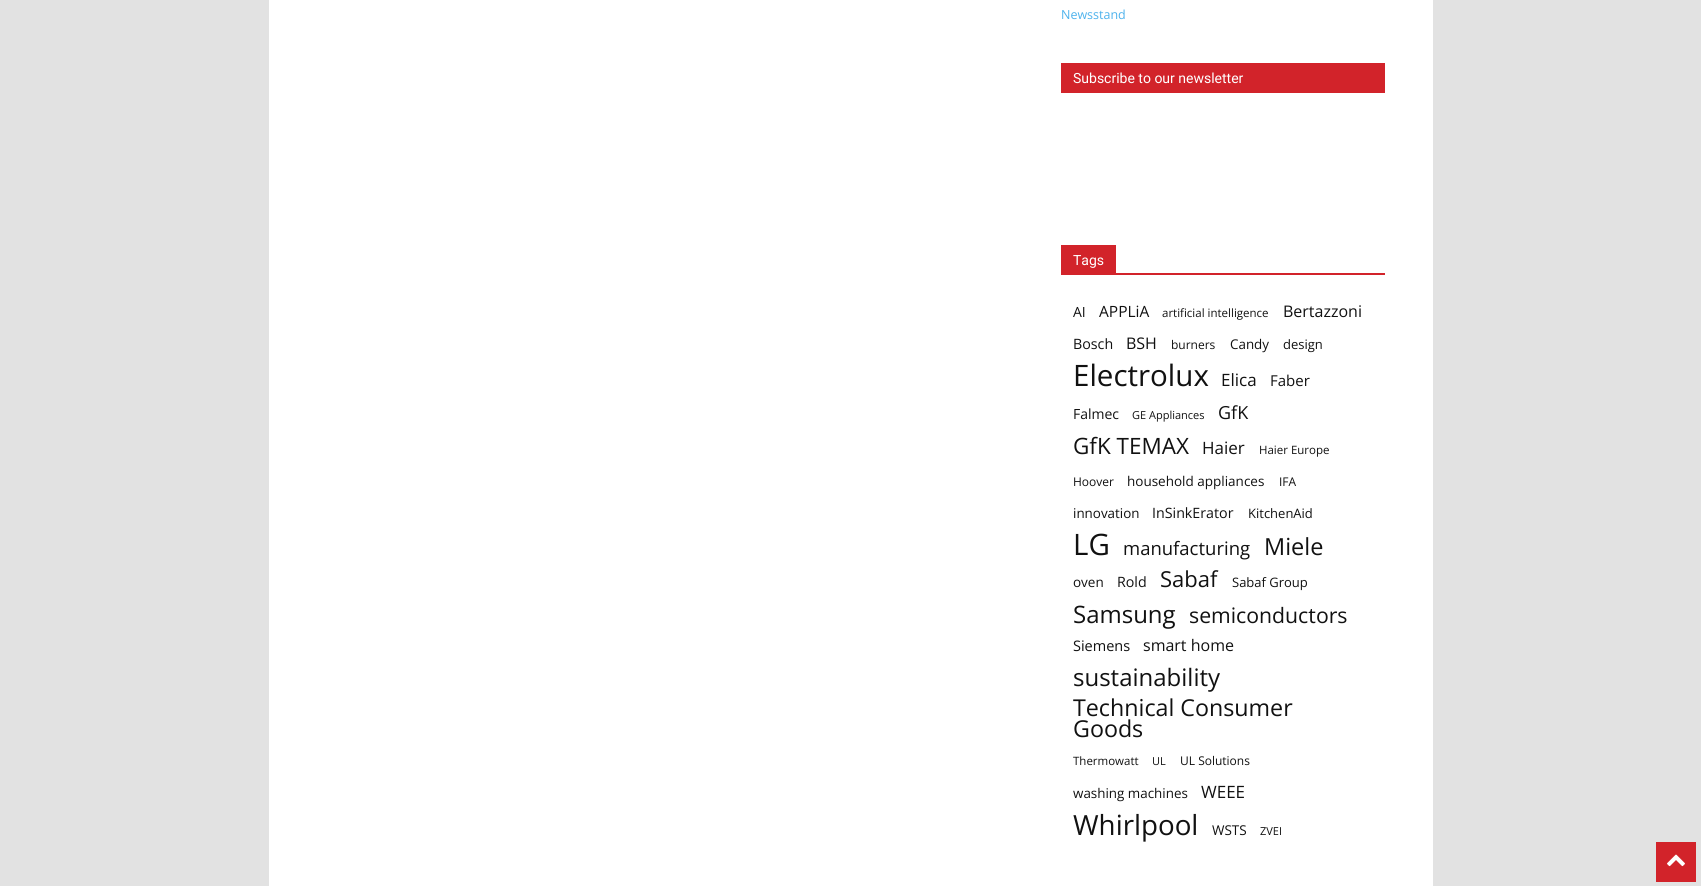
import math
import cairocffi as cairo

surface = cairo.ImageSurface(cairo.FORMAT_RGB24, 1701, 886)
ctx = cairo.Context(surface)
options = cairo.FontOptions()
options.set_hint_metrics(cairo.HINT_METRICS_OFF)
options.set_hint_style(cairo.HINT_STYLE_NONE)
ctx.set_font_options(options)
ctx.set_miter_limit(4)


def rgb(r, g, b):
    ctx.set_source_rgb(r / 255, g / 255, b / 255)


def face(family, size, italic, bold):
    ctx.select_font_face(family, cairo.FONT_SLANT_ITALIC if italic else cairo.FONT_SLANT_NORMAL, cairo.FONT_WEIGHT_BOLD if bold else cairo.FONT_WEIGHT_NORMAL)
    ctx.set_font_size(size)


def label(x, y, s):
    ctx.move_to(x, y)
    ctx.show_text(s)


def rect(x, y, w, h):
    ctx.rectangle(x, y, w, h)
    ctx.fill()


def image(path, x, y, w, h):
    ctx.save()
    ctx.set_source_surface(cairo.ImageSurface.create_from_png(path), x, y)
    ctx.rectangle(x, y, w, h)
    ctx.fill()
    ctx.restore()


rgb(226, 226, 226)
ctx.paint()
rgb(255, 255, 255)
rect(269, 0, 1164, 886)
face('Open Sans', 12.5, 0, 0)
rgb(77, 178, 236)
label(1061, 19, 'Newsstand')
rgb(210, 35, 42)
rect(1061, 63, 324, 30)
face('Roboto', 14, 0, 0)
rgb(255, 255, 255)
label(1073, 83, 'Subscribe to our newsletter')
rgb(210, 35, 42)
rect(1061, 273, 324, 2)
rect(1061, 245, 55, 28)
rgb(255, 255, 255)
label(1073, 265, 'Tags')
face('Open Sans', 14, 0, 0)
rgb(17, 17, 17)
label(1073, 317, 'AI')
face('Open Sans', 15.5, 0, 0)
label(1099, 317, 'APPLiA')
face('Open Sans', 11.5, 0, 0)
label(1162, 317, 'artificial intelligence')
face('Open Sans', 16, 0, 0)
label(1283, 317, 'Bertazzoni')
face('Open Sans', 14.25, 0, 0)
label(1073, 349, 'Bosch')
face('Open Sans', 16, 0, 0)
label(1126, 349, 'BSH')
face('Open Sans', 12, 0, 0)
label(1171, 349, 'burners')
face('Open Sans', 13.4, 0, 0)
label(1230, 349, 'Candy')
face('Open Sans', 13, 0, 0)
label(1283, 349, 'design')
face('Open Sans', 29.5, 0, 0)
label(1073, 386, 'Electrolux')
face('Open Sans', 17, 0, 0)
label(1221, 386, 'Elica')
face('Open Sans', 15, 0, 0)
label(1270, 386, 'Faber')
face('Open Sans', 14, 0, 0)
label(1073, 419, 'Falmec')
face('Open Sans', 11, 0, 0)
label(1132, 419, 'GE Appliances')
face('Open Sans', 18, 0, 0)
label(1218, 419, 'GfK')
face('Open Sans', 22.5, 0, 0)
label(1073, 454, 'GfK TEMAX')
face('Open Sans', 17, 0, 0)
label(1202, 454, 'Haier')
face('Open Sans', 11.5, 0, 0)
label(1259, 454, 'Haier Europe')
face('Open Sans', 12, 0, 0)
label(1073, 486, 'Hoover')
face('Open Sans', 13.5, 0, 0)
label(1127, 486, 'household appliances')
face('Open Sans', 12, 0, 0)
label(1279, 486, 'IFA')
face('Open Sans', 13.4, 0, 0)
label(1073, 518, 'innovation')
face('Open Sans', 14.25, 0, 0)
label(1152, 518, 'InSinkErator')
face('Open Sans', 13, 0, 0)
label(1248, 518, 'KitchenAid')
face('Open Sans', 29.5, 0, 0)
label(1073, 555, 'LG')
face('Open Sans', 18.5, 0, 0)
label(1123, 555, 'manufacturing')
face('Open Sans', 23.5, 0, 0)
label(1264, 555, 'Miele')
face('Open Sans', 13.5, 0, 0)
label(1073, 587, 'oven')
face('Open Sans', 14.25, 0, 0)
label(1117, 587, 'Rold')
face('Open Sans', 22, 0, 0)
label(1160, 587, 'Sabaf')
face('Open Sans', 13, 0, 0)
label(1232, 587, 'Sabaf Group')
face('Open Sans', 24, 0, 0)
label(1073, 623, 'Samsung')
face('Open Sans', 21.25, 0, 0)
label(1189, 623, 'semiconductors')
face('Open Sans', 14.5, 0, 0)
label(1073, 651, 'Siemens')
face('Open Sans', 16, 0, 0)
label(1143, 651, 'smart home')
face('Open Sans', 24, 0, 0)
label(1073, 686, 'sustainability')
face('Open Sans', 23.25, 0, 0)
label(1073, 716, 'Technical Consumer')
label(1073, 737, 'Goods')
face('Open Sans', 11.5, 0, 0)
label(1073, 765, 'Thermowatt')
face('Open Sans', 11, 0, 0)
label(1152, 765, 'UL')
face('Open Sans', 12, 0, 0)
label(1180, 765, 'UL Solutions')
face('Open Sans', 13.4, 0, 0)
label(1073, 798, 'washing machines')
face('Open Sans', 17, 0, 0)
label(1201, 798, 'WEEE')
face('Open Sans', 27.75, 0, 0)
label(1073, 835, 'Whirlpool')
face('Open Sans', 13.5, 0, 0)
label(1212, 835, 'WSTS')
face('Open Sans', 11, 0, 0)
label(1260, 835, 'ZVEI')
rgb(210, 35, 42)
rect(1656, 842, 40, 40)
image('image0.png', 1667, 854, 18, 13)
surface.write_to_png('render.png')
